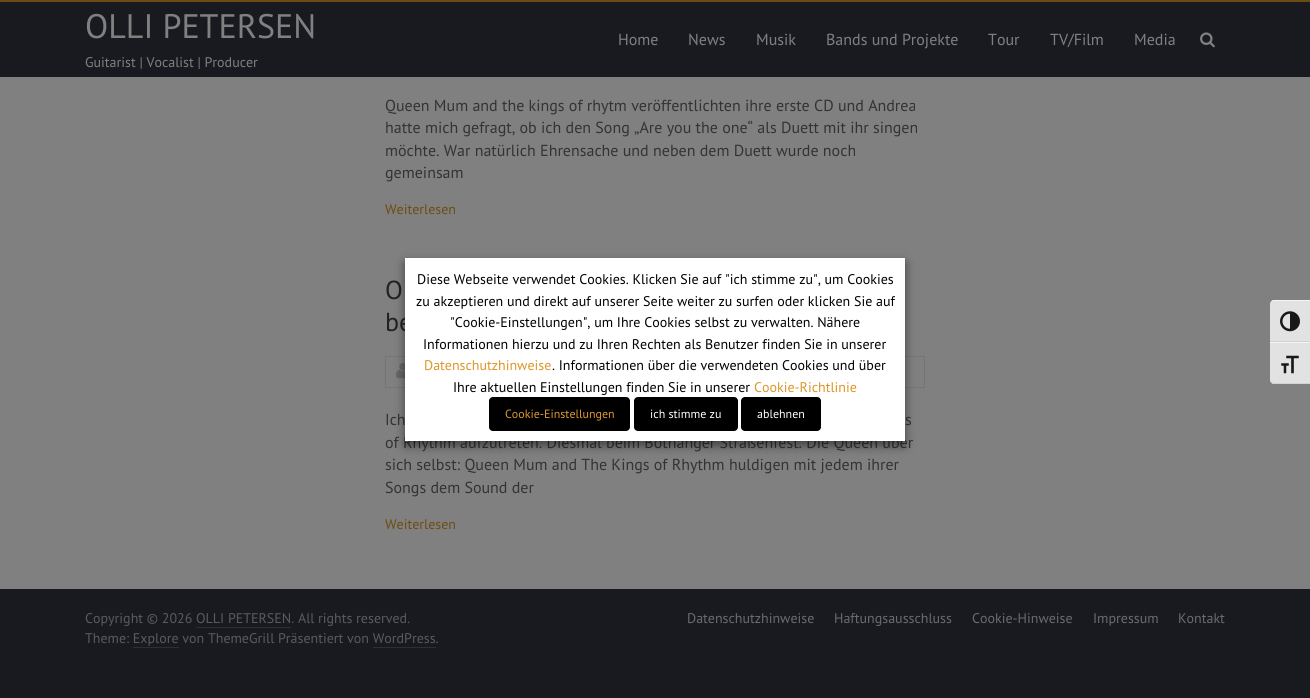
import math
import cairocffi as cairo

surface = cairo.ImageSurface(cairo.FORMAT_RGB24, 1310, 698)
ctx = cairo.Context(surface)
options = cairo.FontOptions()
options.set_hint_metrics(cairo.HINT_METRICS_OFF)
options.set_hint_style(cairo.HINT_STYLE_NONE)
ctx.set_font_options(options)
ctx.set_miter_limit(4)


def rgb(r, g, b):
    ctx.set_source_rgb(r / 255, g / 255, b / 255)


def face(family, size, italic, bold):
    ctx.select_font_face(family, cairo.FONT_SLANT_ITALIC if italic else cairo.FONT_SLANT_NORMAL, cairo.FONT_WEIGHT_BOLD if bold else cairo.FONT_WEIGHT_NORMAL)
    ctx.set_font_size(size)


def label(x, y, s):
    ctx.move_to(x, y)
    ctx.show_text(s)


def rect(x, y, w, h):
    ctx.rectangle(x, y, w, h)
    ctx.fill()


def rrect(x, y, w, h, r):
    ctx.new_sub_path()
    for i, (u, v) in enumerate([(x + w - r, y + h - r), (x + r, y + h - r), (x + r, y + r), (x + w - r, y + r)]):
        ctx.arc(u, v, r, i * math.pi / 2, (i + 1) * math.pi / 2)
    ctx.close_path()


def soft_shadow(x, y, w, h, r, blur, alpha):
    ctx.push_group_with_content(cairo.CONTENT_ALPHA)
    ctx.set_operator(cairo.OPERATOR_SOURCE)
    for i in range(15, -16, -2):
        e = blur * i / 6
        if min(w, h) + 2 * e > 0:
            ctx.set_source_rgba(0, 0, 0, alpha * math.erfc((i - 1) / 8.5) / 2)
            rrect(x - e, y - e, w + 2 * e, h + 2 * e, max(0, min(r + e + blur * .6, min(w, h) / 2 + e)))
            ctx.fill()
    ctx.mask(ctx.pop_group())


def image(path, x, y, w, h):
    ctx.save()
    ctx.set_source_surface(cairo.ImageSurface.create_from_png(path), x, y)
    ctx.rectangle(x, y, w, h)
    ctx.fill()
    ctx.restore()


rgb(128, 128, 128)
ctx.paint()
rgb(24, 26, 32)
rect(0, 2, 1310, 75)
rgb(111, 75, 20)
rect(0, 0, 1310, 2)
face('PT Sans', 34, 0, 0)
rgb(128, 128, 128)
label(85, 38, 'OLLI PETERSEN')
face('PT Sans', 14, 0, 0)
label(85, 67, 'Guitarist | Vocalist | Producer')
face('PT Sans', 16, 0, 0)
label(618, 45, 'Home')
label(688, 45, 'News')
label(756, 45, 'Musik')
label(826, 45, 'Bands und Projekte')
label(988, 45, 'Tour')
label(1050, 45, 'TV/Film')
label(1134, 45, 'Media')
image('image0.png', 1200, 32, 15, 16)
rgb(51, 51, 51)
label(385, 111, 'Queen Mum and the kings of rhytm veröffentlichten ihre erste CD und Andrea')
label(385, 133, 'hatte mich gefragt, ob ich den Song „Are you the one“ als Duett mit ihr singen')
label(385, 156, 'möchte. War natürlich Ehrensache und neben dem Duett wurde noch')
label(385, 178, 'gemeinsam')
face('PT Sans', 14, 0, 0)
rgb(111, 75, 20)
label(385, 214, 'Weiterlesen')
face('PT Sans', 26, 0, 0)
rgb(34, 34, 34)
label(385, 299, 'O')
label(385, 331, 'be')
ctx.rectangle(385.5, 356.5, 539, 31)
rgb(117, 117, 117)
ctx.set_line_width(1)
ctx.stroke()
image('image1.png', 396, 363, 9, 16)
face('PT Sans', 16, 0, 0)
rgb(51, 51, 51)
label(385, 425, 'Ich')
label(905, 425, 's')
label(385, 448, 'of Rhythm aufzutreten. Diesmal beim Botnanger Straßenfest. Die Queen über')
label(385, 470, 'sich selbst: Queen Mum and The Kings of Rhythm huldigen mit jedem ihrer')
label(385, 493, 'Songs dem Sound der')
face('PT Sans', 14, 0, 0)
rgb(111, 75, 20)
label(385, 529, 'Weiterlesen')
rgb(24, 26, 32)
rect(0, 589, 1310, 109)
rgb(89, 91, 91)
label(85, 623, 'Copyright © 2026 OLLI PETERSEN. All rights reserved.')
rgb(45, 47, 49)
rect(196, 627, 95, 1)
rgb(89, 91, 91)
label(85, 643, 'Theme: Explore von ThemeGrill Präsentiert von WordPress.')
rgb(45, 47, 49)
rect(133, 647, 46, 1)
rect(373, 647, 63, 1)
rgb(107, 107, 107)
label(687, 623, 'Datenschutzhinweise')
label(834, 623, 'Haftungsausschluss')
label(972, 623, 'Cookie-Hinweise')
label(1093, 623, 'Impressum')
label(1178, 623, 'Kontakt')
rgb(0, 0, 0)
soft_shadow(405, 263, 500, 183, 0, 5, 0.5)
rgb(255, 255, 255)
rect(405, 258, 500, 183)
rgb(0, 0, 0)
label(417, 284, 'Diese Webseite verwendet Cookies. Klicken Sie auf "ich stimme zu", um Cookies')
label(416, 306, 'zu akzeptieren und direkt auf unserer Seite weiter zu surfen oder klicken Sie auf')
label(450, 327, '"Cookie-Einstellungen", um Ihre Cookies selbst zu verwalten. Nähere')
label(423, 349, 'Informationen hierzu und zu Ihren Rechten als Benutzer finden Sie in unserer')
rgb(221, 149, 39)
label(424, 370, 'Datenschutzhinweise')
rgb(0, 0, 0)
label(552, 370, '. Informationen über die verwendeten Cookies und über')
label(453, 392, 'Ihre aktuellen Einstellungen finden Sie in unserer')
rgb(221, 149, 39)
label(754, 392, 'Cookie-Richtlinie')
rgb(0, 0, 0)
rrect(489, 397, 141, 34, 4)
ctx.fill()
face('PT Sans', 12, 0, 0)
rgb(221, 153, 51)
label(505, 418, 'Cookie-Einstellungen')
rgb(0, 0, 0)
rrect(634, 397, 104, 34, 4)
ctx.fill()
rgb(255, 255, 255)
label(650, 418, 'ich stimme zu')
rgb(0, 0, 0)
rrect(741, 397, 80, 34, 4)
ctx.fill()
rgb(255, 255, 255)
label(757, 418, 'ablehnen')
rgb(226, 226, 226)
ctx.new_path()
ctx.move_to(1274, 300)
ctx.line_to(1310, 300)
ctx.line_to(1310, 342)
ctx.line_to(1270, 342)
ctx.line_to(1270, 304)
ctx.curve_to(1270, 302, 1272, 300, 1274, 300)
ctx.close_path()
ctx.fill()
rgb(245, 245, 245)
ctx.new_path()
ctx.move_to(1274, 301)
ctx.line_to(1310, 301)
ctx.line_to(1310, 300)
ctx.line_to(1274, 300)
ctx.curve_to(1272, 300, 1270, 302, 1270, 304)
ctx.curve_to(1270, 302, 1272, 301, 1274, 301)
ctx.close_path()
ctx.fill()
rgb(210, 210, 210)
rect(1270, 341, 40, 1)
image('image2.png', 1280, 311, 20, 21)
rgb(226, 226, 226)
ctx.new_path()
ctx.move_to(1270, 342)
ctx.line_to(1310, 342)
ctx.line_to(1310, 384)
ctx.line_to(1274, 384)
ctx.curve_to(1272, 384, 1270, 382, 1270, 380)
ctx.close_path()
ctx.fill()
rgb(245, 245, 245)
rect(1270, 342, 40, 1)
rgb(210, 210, 210)
ctx.new_path()
ctx.move_to(1310, 384)
ctx.line_to(1310, 383)
ctx.line_to(1274, 383)
ctx.curve_to(1272, 383, 1270, 382, 1270, 380)
ctx.curve_to(1270, 382, 1272, 384, 1274, 384)
ctx.close_path()
ctx.fill()
image('image3.png', 1281, 355, 18, 19)
surface.write_to_png('render.png')
